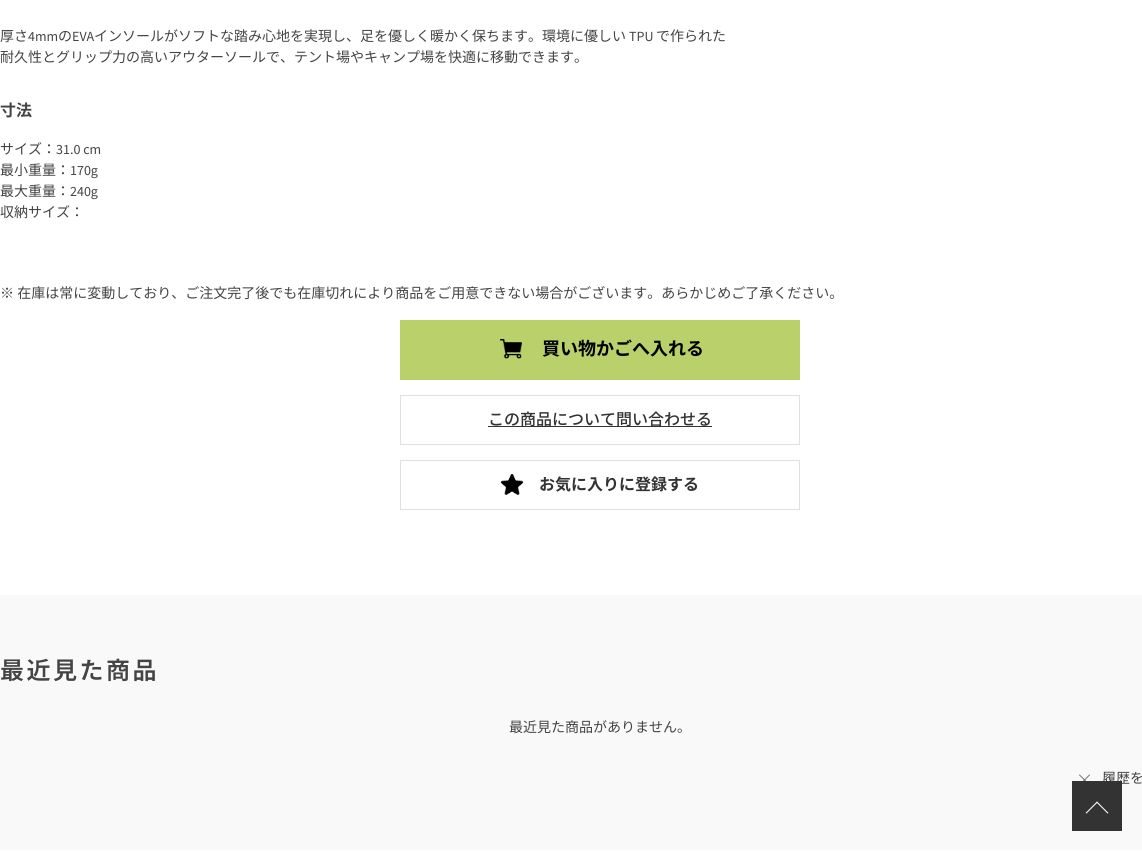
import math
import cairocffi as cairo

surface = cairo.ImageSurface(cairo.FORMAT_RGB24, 1142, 851)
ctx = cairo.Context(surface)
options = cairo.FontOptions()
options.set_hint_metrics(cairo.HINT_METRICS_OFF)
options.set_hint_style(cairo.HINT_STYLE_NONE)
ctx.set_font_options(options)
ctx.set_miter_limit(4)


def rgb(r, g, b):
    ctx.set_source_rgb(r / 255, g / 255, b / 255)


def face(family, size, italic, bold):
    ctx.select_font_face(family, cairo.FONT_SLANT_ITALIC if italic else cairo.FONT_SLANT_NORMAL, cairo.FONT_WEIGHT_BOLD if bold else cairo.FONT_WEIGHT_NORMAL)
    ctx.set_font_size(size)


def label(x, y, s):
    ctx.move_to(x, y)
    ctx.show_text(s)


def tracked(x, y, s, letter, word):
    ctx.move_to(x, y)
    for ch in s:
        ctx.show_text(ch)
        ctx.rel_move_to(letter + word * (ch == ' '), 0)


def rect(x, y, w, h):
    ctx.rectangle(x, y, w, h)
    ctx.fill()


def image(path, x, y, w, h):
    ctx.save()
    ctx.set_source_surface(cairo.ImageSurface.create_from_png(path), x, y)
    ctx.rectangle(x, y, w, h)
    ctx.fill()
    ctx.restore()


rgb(255, 255, 255)
ctx.paint()
face('Noto Sans JP', 14, 0, 0)
rgb(68, 68, 68)
label(0, 41, '厚さ')
face('Source Sans 3', 14, 0, 0)
label(28, 41, '4mm')
face('Noto Sans JP', 14, 0, 0)
label(58, 41, 'の')
face('Source Sans 3', 14, 0, 0)
label(72, 41, 'EVA')
face('Noto Sans JP', 14, 0, 0)
label(94, 41, 'インソールがソフトな踏み心地を実現し、足を優しく暖かく保ちます。環境に優しい')
face('Source Sans 3', 14, 0, 0)
label(629, 41, 'TPU')
face('Noto Sans JP', 14, 0, 0)
label(656, 41, 'で作られた')
label(0, 62, '耐久性とグリップ力の高いアウターソールで、テント場やキャンプ場を快適に移動できます。')
face('Noto Sans JP', 16, 0, 1)
label(0, 116, '寸法')
face('Noto Sans JP', 14, 0, 0)
label(0, 154, 'サイズ：')
face('Source Sans 3', 14, 0, 0)
label(56, 154, '31.0 cm')
face('Noto Sans JP', 14, 0, 0)
label(0, 175, '最小重量：')
face('Source Sans 3', 14, 0, 0)
label(70, 175, '170g')
face('Noto Sans JP', 14, 0, 0)
label(0, 196, '最大重量：')
face('Source Sans 3', 14, 0, 0)
label(70, 196, '240g')
face('Noto Sans JP', 14, 0, 0)
label(0, 217, '収納サイズ：')
label(0, 298, '※ 在庫は常に変動しており、ご注文完了後でも在庫切れにより商品をご用意できない場合がございます。あらかじめご了承ください。')
rgb(186, 208, 106)
rect(400, 320, 400, 60)
image('image0.png', 500, 339, 22, 20)
face('Noto Sans JP', 18, 0, 1)
rgb(0, 0, 0)
label(542, 355, '買い物かごへ入れる')
ctx.rectangle(400.5, 395.5, 399, 49)
rgb(224, 224, 224)
ctx.set_line_width(1)
ctx.stroke()
rgb(51, 51, 51)
rect(488, 426, 224, 1)
face('Noto Sans JP Medium', 16, 0, 0)
label(488, 425, 'この商品について問い合わせる')
ctx.rectangle(400.5, 460.5, 399, 49)
rgb(224, 224, 224)
ctx.stroke()
image('image1.png', 501, 474, 22, 21)
face('Noto Sans JP', 16, 0, 1)
rgb(51, 51, 51)
label(539, 490, 'お気に入りに登録する')
rgb(249, 249, 249)
rect(0, 595, 1142, 255)
face('Noto Sans JP SemiBold', 24, 0, 0)
rgb(68, 68, 68)
tracked(0, 679, '最近見た商品', 2.5, 0)
face('Noto Sans JP', 14, 0, 0)
label(509, 732, '最近見た商品がありません。')
ctx.new_path()
ctx.move_to(1079.5, 774.5)
ctx.line_to(1090, 785)
ctx.line_to(1089.5, 785.5)
ctx.line_to(1079, 775)
ctx.close_path()
ctx.fill()
label(1102, 783, '履歴を')
ctx.new_path()
ctx.move_to(1079, 785)
ctx.line_to(1089.5, 774.5)
ctx.line_to(1090, 775)
ctx.line_to(1079.5, 785.5)
ctx.close_path()
ctx.fill()
rgb(51, 51, 51)
rect(1072, 781, 50, 50)
rgb(255, 255, 255)
ctx.new_path()
ctx.move_to(1097, 801.5)
ctx.line_to(1108.5, 813)
ctx.line_to(1107.5, 813.5)
ctx.line_to(1096.5, 802.5)
ctx.close_path()
ctx.fill()
ctx.new_path()
ctx.move_to(1097, 801.5)
ctx.line_to(1097.5, 802.5)
ctx.line_to(1086.5, 813.5)
ctx.line_to(1085.5, 813)
ctx.close_path()
ctx.fill()
surface.write_to_png('render.png')
